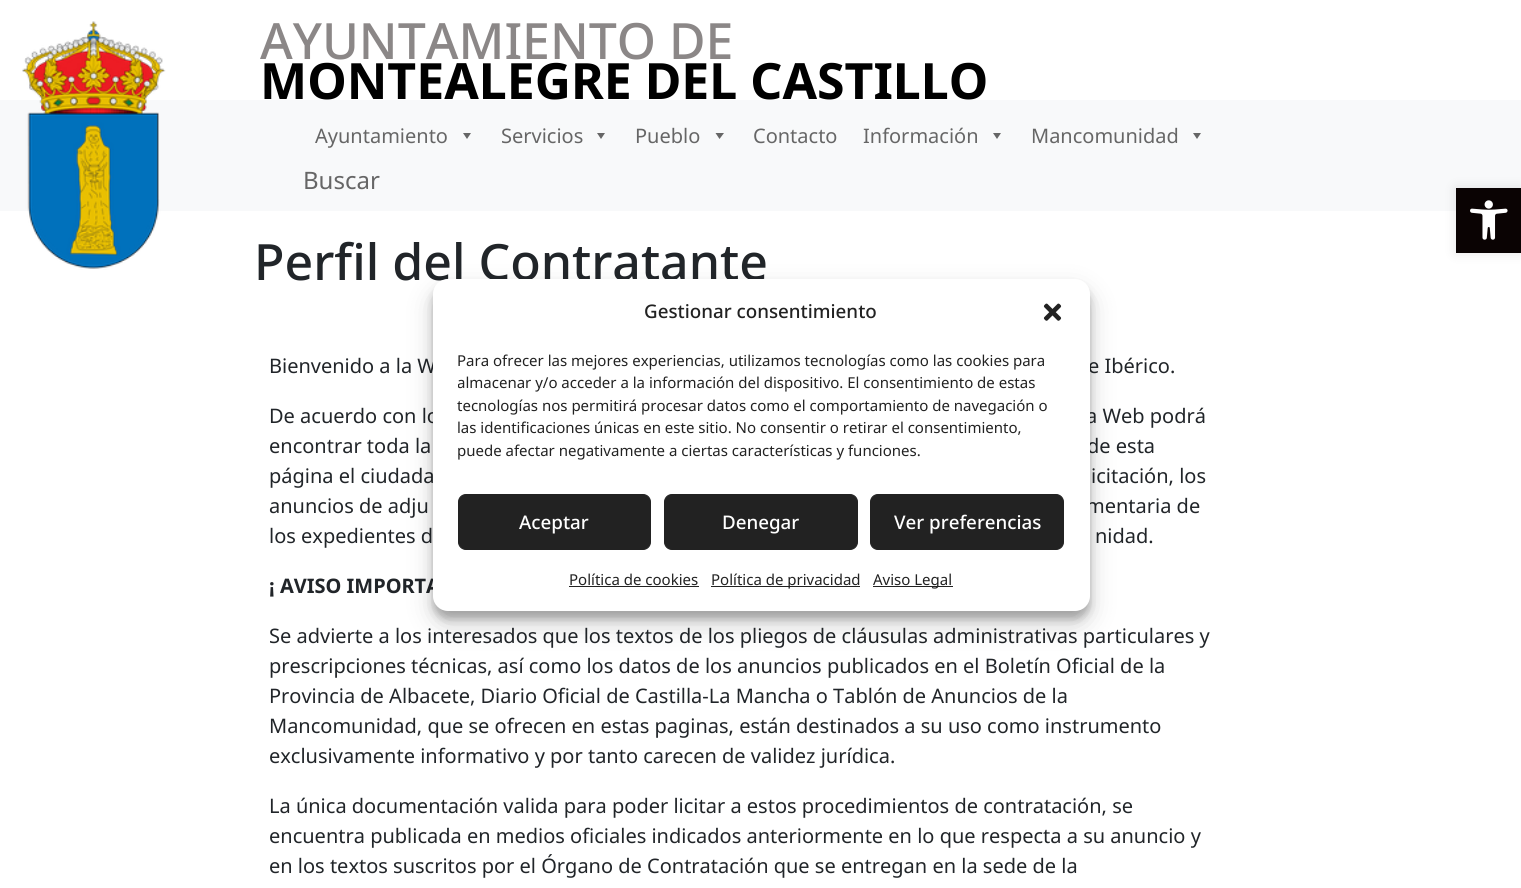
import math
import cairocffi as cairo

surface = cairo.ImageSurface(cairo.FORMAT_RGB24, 1521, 888)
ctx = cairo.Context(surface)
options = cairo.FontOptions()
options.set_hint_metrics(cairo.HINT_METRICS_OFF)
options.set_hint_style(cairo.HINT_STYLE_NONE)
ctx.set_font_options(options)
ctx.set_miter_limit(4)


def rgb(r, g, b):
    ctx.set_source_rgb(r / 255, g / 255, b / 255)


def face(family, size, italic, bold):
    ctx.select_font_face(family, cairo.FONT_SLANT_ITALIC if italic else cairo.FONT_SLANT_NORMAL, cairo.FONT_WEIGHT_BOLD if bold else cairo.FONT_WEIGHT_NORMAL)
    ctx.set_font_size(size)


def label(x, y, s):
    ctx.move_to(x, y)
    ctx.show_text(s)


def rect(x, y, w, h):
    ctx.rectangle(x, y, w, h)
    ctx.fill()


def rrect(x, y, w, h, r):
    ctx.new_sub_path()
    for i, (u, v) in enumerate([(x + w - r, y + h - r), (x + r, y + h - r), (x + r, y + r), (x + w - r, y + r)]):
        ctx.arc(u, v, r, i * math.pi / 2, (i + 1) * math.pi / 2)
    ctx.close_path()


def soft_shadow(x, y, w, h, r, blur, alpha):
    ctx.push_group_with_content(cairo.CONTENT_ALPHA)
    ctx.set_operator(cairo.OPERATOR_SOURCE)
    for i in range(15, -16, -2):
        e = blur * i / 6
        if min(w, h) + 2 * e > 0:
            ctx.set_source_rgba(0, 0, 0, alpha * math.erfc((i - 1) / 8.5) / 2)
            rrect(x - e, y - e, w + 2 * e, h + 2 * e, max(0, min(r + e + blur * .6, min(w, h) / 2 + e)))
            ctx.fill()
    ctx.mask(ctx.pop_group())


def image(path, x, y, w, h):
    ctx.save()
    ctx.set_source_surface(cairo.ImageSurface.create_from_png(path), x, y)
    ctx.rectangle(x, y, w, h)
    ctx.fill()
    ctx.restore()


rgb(255, 255, 255)
ctx.paint()
rgb(248, 249, 250)
rect(0, 100, 1521, 111)
image('image0.png', 22, 21, 144, 249)
face('Noto Sans Medium', 50, 0, 0)
rgb(139, 135, 135)
label(260, 59, 'AYUNTAMIENTO DE')
face('Noto Sans', 50, 0, 1)
rgb(0, 0, 0)
label(260, 99, 'MONTEALEGRE DEL CASTILLO')
face('Noto Sans', 20, 0, 0)
rgb(102, 102, 102)
label(315, 143, 'Ayuntamiento')
ctx.new_path()
ctx.move_to(471, 133)
ctx.line_to(467, 139)
ctx.line_to(463, 133)
ctx.close_path()
ctx.fill()
label(501, 143, 'Servicios')
ctx.new_path()
ctx.move_to(605, 133)
ctx.line_to(601, 139)
ctx.line_to(597, 133)
ctx.close_path()
ctx.fill()
label(635, 143, 'Pueblo')
ctx.new_path()
ctx.move_to(724, 133)
ctx.line_to(719.5, 139)
ctx.line_to(715.5, 133)
ctx.close_path()
ctx.fill()
label(753, 143, 'Contacto')
label(863, 143, 'Información')
ctx.new_path()
ctx.move_to(1001, 133)
ctx.line_to(997, 139)
ctx.line_to(993, 133)
ctx.close_path()
ctx.fill()
label(1031, 143, 'Mancomunidad')
ctx.new_path()
ctx.move_to(1201, 133)
ctx.line_to(1197, 139)
ctx.line_to(1193, 133)
ctx.close_path()
ctx.fill()
face('Noto Sans', 24, 0, 0)
label(303, 189, 'Buscar')
face('Noto Sans Medium', 50, 0, 0)
rgb(33, 37, 41)
label(254, 280, 'Perfil del Contratante')
face('Noto Sans', 20, 0, 0)
label(269, 373, 'Bienvenido a la W')
label(1088, 373, 'e Ibérico.')
label(269, 423, 'De acuerdo con lo')
label(1086, 423, 'a Web podrá')
label(269, 453, 'encontrar toda la')
label(1087, 453, 'de esta')
label(269, 483, 'página el ciudada')
label(1091, 483, 'icitación, los')
label(269, 513, 'anuncios de adju')
label(1086, 513, 'mentaria de')
label(269, 543, 'los expedientes d')
label(1095, 543, 'nidad.')
face('Noto Sans', 20, 0, 1)
label(269, 593, '¡ AVISO IMPORTA')
face('Noto Sans', 20, 0, 0)
label(269, 643, 'Se advierte a los interesados que los textos de los pliegos de cláusulas administrativas particulares y')
label(269, 673, 'prescripciones técnicas, así como los datos de los anuncios publicados en el Boletín Oficial de la')
label(269, 703, 'Provincia de Albacete, Diario Oficial de Castilla-La Mancha o Tablón de Anuncios de la')
label(269, 733, 'Mancomunidad, que se ofrecen en estas paginas, están destinados a su uso como instrumento')
label(269, 763, 'exclusivamente informativo y por tanto carecen de validez jurídica.')
label(269, 813, 'La única documentación valida para poder licitar a estos procedimientos de contratación, se')
label(269, 843, 'encuentra publicada en medios oficiales indicados anteriormente en lo que respecta a su anuncio y')
label(269, 873, 'en los textos suscritos por el Órgano de Contratación que se entregan en la sede de la')
rgb(0, 0, 0)
soft_shadow(1456, 188, 65, 65, 0, 6, 0.1)
rgb(10, 3, 3)
rect(1456, 188, 65, 65)
image('image1.png', 1470, 200, 38, 40)
rgb(0, 0, 0)
soft_shadow(433, 286, 657, 333, 15, 4, 0.23)
soft_shadow(433, 291, 657, 333, 15, 12.5, 0.19)
rgb(255, 255, 255)
rrect(433, 279, 657, 332, 15)
ctx.fill()
face('Noto Sans Medium', 18.75, 0, 0)
rgb(34, 34, 34)
label(644, 318, 'Gestionar consentimiento')
image('image2.png', 1043, 303, 19, 18)
face('Noto Sans', 15, 0, 0)
label(457, 366, 'Para ofrecer las mejores experiencias, utilizamos tecnologías como las cookies para')
ctx.save()
ctx.rectangle(458, 350, 607, 119)
ctx.clip()
label(457, 388, 'almacenar y/o acceder a la información del dispositivo. El consentimiento de estas')
ctx.restore()
label(457, 411, 'tecnologías nos permitirá procesar datos como el comportamiento de navegación o')
label(457, 433, 'las identificaciones únicas en este sitio. No consentir o retirar el consentimiento,')
label(457, 456, 'puede afectar negativamente a ciertas características y funciones.')
rrect(458.5, 494.5, 192, 55, 7.5)
ctx.fill_preserve()
ctx.set_line_width(1)
ctx.stroke()
face('Noto Sans Medium', 18.75, 0, 0)
rgb(255, 255, 255)
label(519, 529, 'Aceptar')
rgb(34, 34, 34)
rrect(664.5, 494.5, 193, 55, 7.5)
ctx.fill_preserve()
ctx.stroke()
rgb(255, 255, 255)
label(722, 529, 'Denegar')
rgb(34, 34, 34)
rrect(870.5, 494.5, 193, 55, 7.5)
ctx.fill_preserve()
ctx.stroke()
rgb(255, 255, 255)
label(894, 529, 'Ver preferencias')
face('Noto Sans', 15, 0, 0)
rgb(34, 34, 34)
label(569, 585, 'Política de cookies')
rect(569, 586, 130, 1)
rect(711, 586, 149, 1)
label(711, 585, 'Política de privacidad')
rect(873, 586, 80, 1)
label(873, 585, 'Aviso Legal')
surface.write_to_png('render.png')
